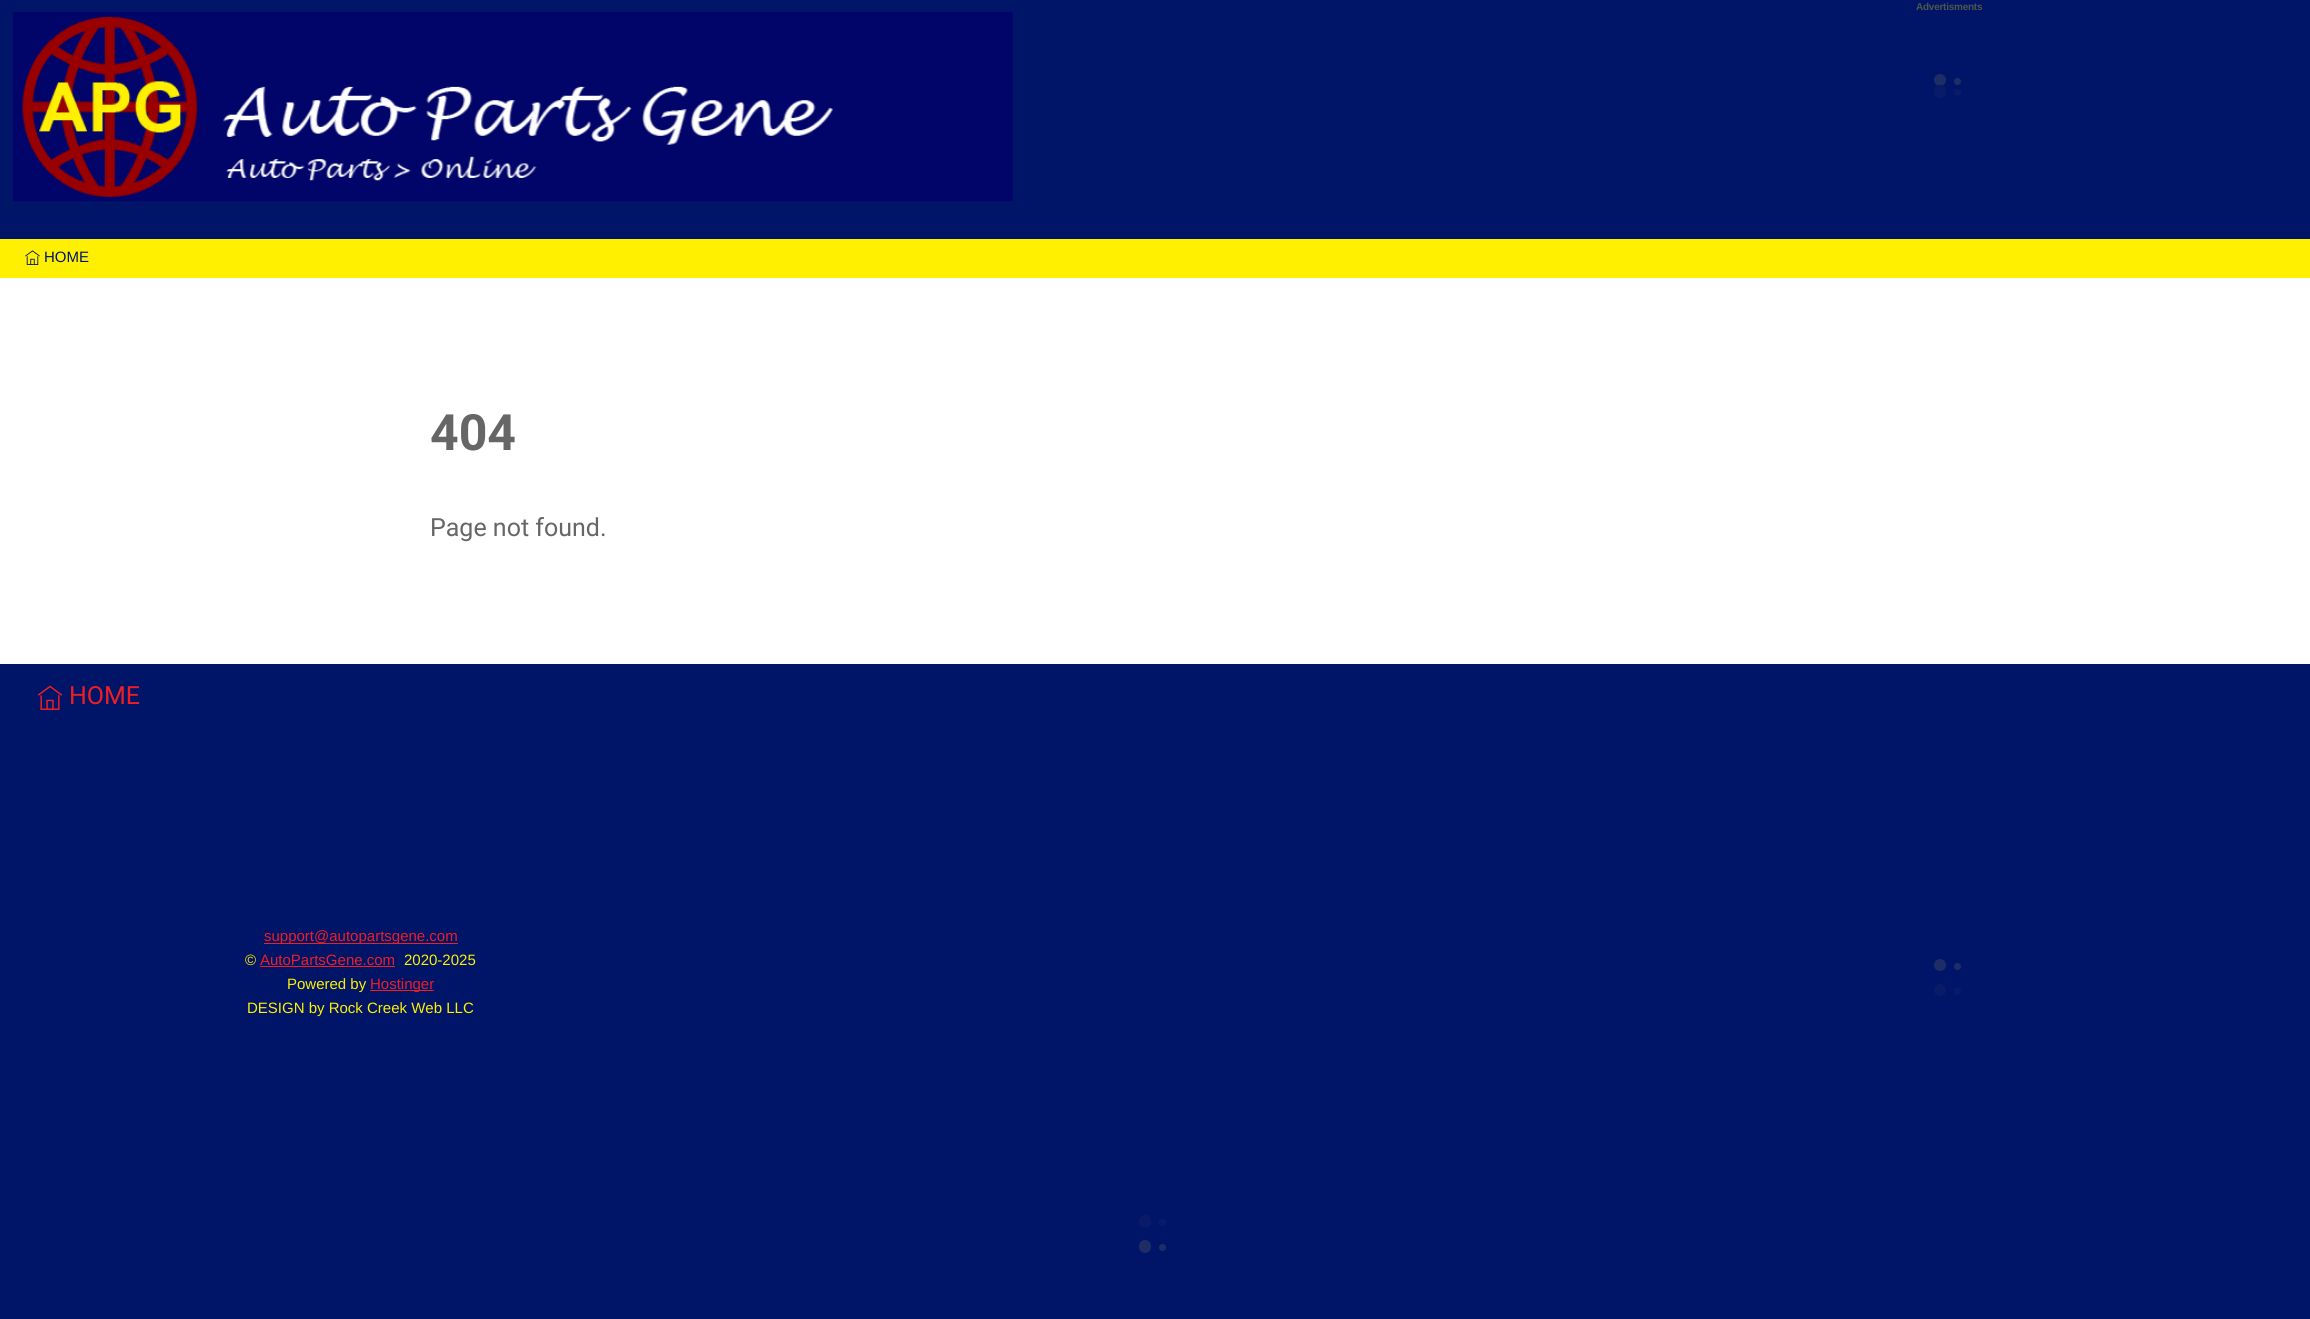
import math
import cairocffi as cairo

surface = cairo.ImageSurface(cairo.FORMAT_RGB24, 2310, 1319)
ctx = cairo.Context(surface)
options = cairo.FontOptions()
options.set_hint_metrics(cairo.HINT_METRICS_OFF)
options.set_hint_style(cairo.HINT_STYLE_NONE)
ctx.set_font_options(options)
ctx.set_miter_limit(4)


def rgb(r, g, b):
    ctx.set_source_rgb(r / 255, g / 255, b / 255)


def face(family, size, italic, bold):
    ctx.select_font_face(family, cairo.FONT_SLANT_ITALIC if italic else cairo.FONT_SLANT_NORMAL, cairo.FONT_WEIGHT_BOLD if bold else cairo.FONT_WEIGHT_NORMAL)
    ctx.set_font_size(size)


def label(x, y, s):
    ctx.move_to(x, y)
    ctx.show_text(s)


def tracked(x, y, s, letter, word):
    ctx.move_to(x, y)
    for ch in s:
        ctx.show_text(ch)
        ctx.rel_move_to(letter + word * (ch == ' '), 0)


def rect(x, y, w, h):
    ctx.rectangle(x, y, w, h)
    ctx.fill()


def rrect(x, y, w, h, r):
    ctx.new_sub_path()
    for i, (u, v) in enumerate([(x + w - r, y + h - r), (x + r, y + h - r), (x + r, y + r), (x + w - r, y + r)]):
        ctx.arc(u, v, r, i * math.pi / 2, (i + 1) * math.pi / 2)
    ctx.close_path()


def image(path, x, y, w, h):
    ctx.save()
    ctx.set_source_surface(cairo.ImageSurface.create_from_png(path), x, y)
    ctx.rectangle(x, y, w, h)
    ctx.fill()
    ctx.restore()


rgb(255, 255, 255)
ctx.paint()
rgb(0, 20, 104)
rect(0, 0, 2310, 239)
face('Liberation Sans', 10, 0, 1)
rgb(77, 86, 73)
tracked(1916, 10, 'Advertisments', -0.25, 0)
rgb(31, 45, 103)
ctx.new_path()
ctx.arc(1940, 80, 6, 0, 2 * math.pi)
ctx.fill()
ctx.arc(1957.5, 81.5, 3.5, 0, 2 * math.pi)
ctx.fill()
rgb(9, 27, 104)
rrect(1934, 85, 12, 13, 6)
ctx.fill()
ctx.arc(1957.5, 92.5, 3.5, 0, 2 * math.pi)
ctx.fill()
image('image0.png', 13, 12, 1000, 190)
rgb(255, 240, 0)
rect(0, 239, 2310, 39)
image('image1.png', 25, 250, 15, 15)
face('Liberation Sans', 15, 0, 0)
rgb(0, 20, 104)
label(44, 262, 'HOME')
face('Roboto', 50, 0, 1)
rgb(102, 102, 102)
label(430, 450, '404')
face('Roboto', 25, 0, 0)
label(430, 536, 'Page not found.')
rgb(0, 20, 104)
rect(0, 664, 2310, 655)
image('image2.png', 38, 685, 25, 25)
rgb(237, 30, 36)
label(69, 704, 'HOME')
rect(264, 943, 194, 1)
face('Liberation Sans', 15, 0, 0)
label(264, 941, 'support@autopartsgene.com')
rgb(255, 240, 0)
label(245, 965, '©')
rgb(237, 30, 36)
label(260, 965, 'AutoPartsGene.com')
rect(260, 966, 135, 1)
rgb(255, 240, 0)
label(404, 965, '2020-2025')
label(287, 989, 'Powered by')
rgb(237, 30, 36)
rect(370, 990, 64, 1)
label(370, 989, 'Hostinger')
rgb(255, 240, 0)
label(247, 1013, 'DESIGN by Rock Creek Web LLC')
rgb(31, 45, 103)
ctx.new_path()
ctx.arc(1940, 965, 6, 0, 2 * math.pi)
ctx.fill()
ctx.arc(1957.5, 966.5, 3.5, 0, 2 * math.pi)
ctx.fill()
rgb(9, 27, 104)
ctx.arc(1940, 990, 6, 0, 2 * math.pi)
ctx.fill()
ctx.arc(1957.5, 991.5, 3.5, 0, 2 * math.pi)
ctx.fill()
rrect(1139, 1215, 12, 13, 6)
ctx.fill()
ctx.arc(1162.5, 1222.5, 3.5, 0, 2 * math.pi)
ctx.fill()
rgb(31, 45, 103)
rrect(1139, 1240, 12, 13, 6)
ctx.fill()
ctx.arc(1162.5, 1247.5, 3.5, 0, 2 * math.pi)
ctx.fill()
surface.write_to_png('render.png')
